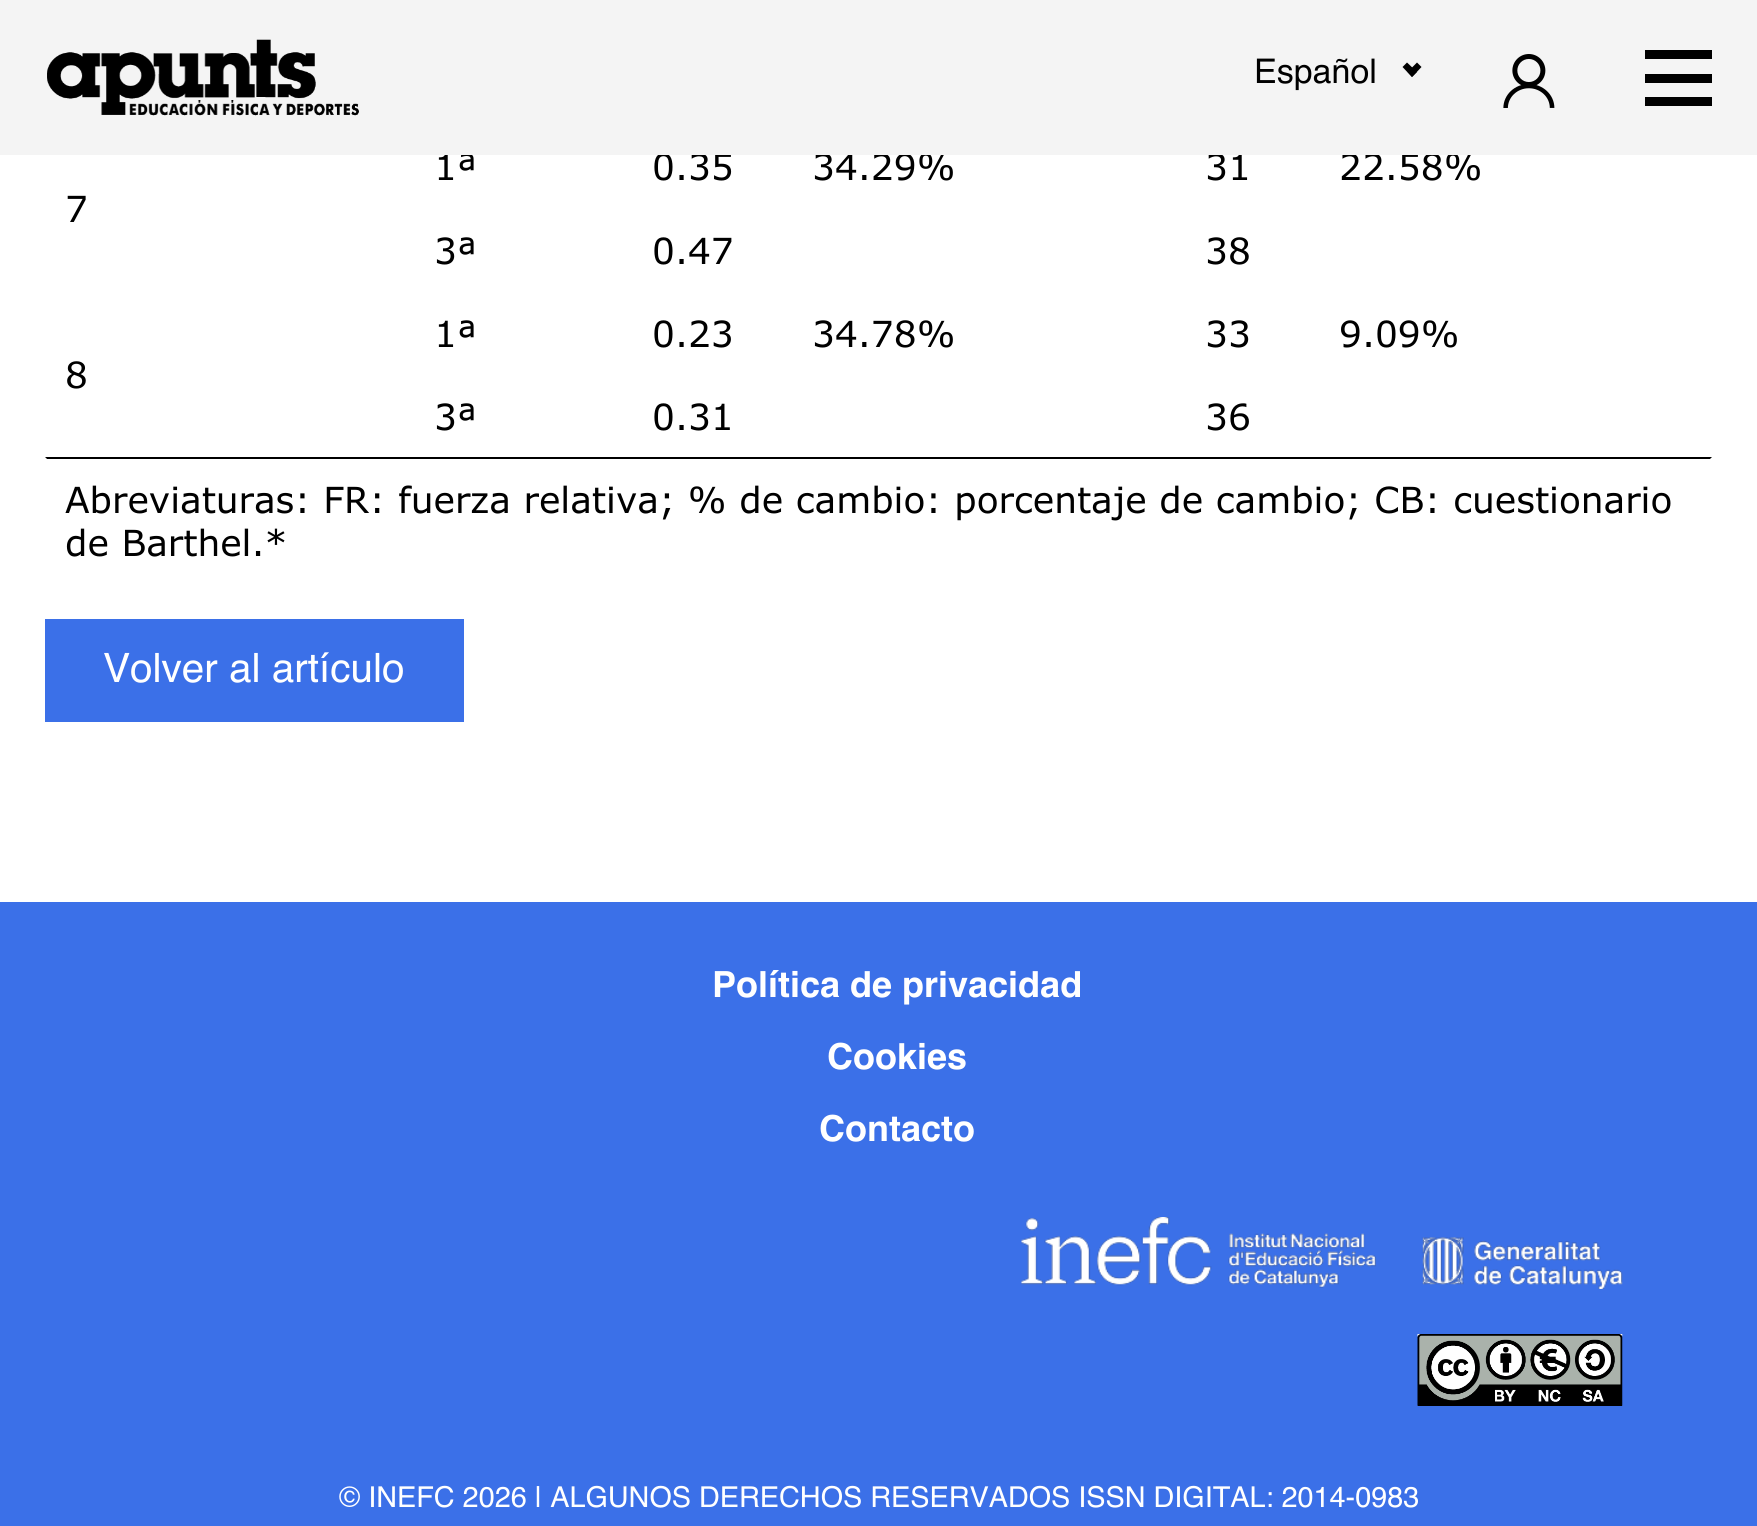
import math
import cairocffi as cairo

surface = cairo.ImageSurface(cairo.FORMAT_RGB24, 1757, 1526)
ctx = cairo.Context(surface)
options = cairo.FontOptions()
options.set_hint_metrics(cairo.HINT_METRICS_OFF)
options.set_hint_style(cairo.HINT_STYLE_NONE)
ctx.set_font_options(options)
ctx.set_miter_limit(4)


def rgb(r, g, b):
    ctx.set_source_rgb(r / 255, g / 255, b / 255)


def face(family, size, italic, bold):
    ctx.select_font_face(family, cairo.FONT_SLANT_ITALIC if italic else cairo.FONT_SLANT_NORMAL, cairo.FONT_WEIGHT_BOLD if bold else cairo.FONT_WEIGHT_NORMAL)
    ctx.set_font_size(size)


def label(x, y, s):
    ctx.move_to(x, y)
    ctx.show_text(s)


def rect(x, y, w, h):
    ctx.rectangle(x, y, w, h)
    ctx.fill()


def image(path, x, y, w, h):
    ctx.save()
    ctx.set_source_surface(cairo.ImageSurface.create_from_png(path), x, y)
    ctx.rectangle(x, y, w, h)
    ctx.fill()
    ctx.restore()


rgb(255, 255, 255)
ctx.paint()
face('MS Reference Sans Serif', 36, 0, 0)
rgb(0, 0, 0)
label(434, 180, '1ª')
label(652, 180, '0.35')
label(812, 180, '34.29%')
label(1205, 180, '31')
label(1339, 180, '22.58%')
rgb(244, 244, 244)
rect(0, 0, 1757, 155)
image('image0.png', 47, 39, 312, 77)
face('Helvetica', 34, 0, 0)
rgb(0, 0, 0)
label(1254, 83, 'Español')
ctx.new_path()
ctx.move_to(1421.5, 67)
ctx.line_to(1412, 77)
ctx.line_to(1407.5, 72)
ctx.line_to(1417, 62.5)
ctx.close_path()
ctx.fill()
ctx.new_path()
ctx.move_to(1417, 72)
ctx.line_to(1412, 77)
ctx.line_to(1402.5, 67)
ctx.line_to(1407, 62.5)
ctx.close_path()
ctx.fill()
image('image1.png', 1503, 54, 52, 54)
rect(1645, 50, 67, 9)
rect(1645, 74, 67, 9)
rect(1645, 97, 67, 9)
face('MS Reference Sans Serif', 36, 0, 0)
label(65, 222, '7')
label(434, 264, '3ª')
label(652, 264, '0.47')
label(1205, 264, '38')
label(434, 347, '1ª')
label(652, 347, '0.23')
label(812, 347, '34.78%')
label(1205, 347, '33')
label(1339, 347, '9.09%')
label(65, 388, '8')
label(434, 430, '3ª')
label(652, 430, '0.31')
label(1205, 430, '36')
ctx.new_path()
ctx.move_to(45, 457)
ctx.line_to(1712, 457)
ctx.line_to(1710, 459)
ctx.line_to(47, 459)
ctx.close_path()
ctx.fill()
label(65, 513, 'Abreviaturas: FR: fuerza relativa; % de cambio: porcentaje de cambio; CB: cuestionario')
label(65, 556, 'de Barthel.*')
rgb(59, 112, 232)
rect(45, 619, 419, 103)
face('Helvetica', 40.5, 0, 0)
rgb(255, 255, 255)
label(103, 682, 'Volver al artículo')
rgb(59, 112, 232)
rect(0, 902, 1757, 624)
face('Helvetica', 36, 0, 1)
rgb(255, 255, 255)
label(712, 997, 'Política de privacidad')
label(827, 1069, 'Cookies')
label(819, 1141, 'Contacto')
image('image2.png', 1021, 1217, 602, 72)
image('image3.png', 1417, 1334, 206, 72)
face('Helvetica', 28.8, 0, 0)
label(339, 1507, '© INEFC 2026 | ALGUNOS DERECHOS RESERVADOS ISSN DIGITAL: 2014-0983')
surface.write_to_png('render.png')
